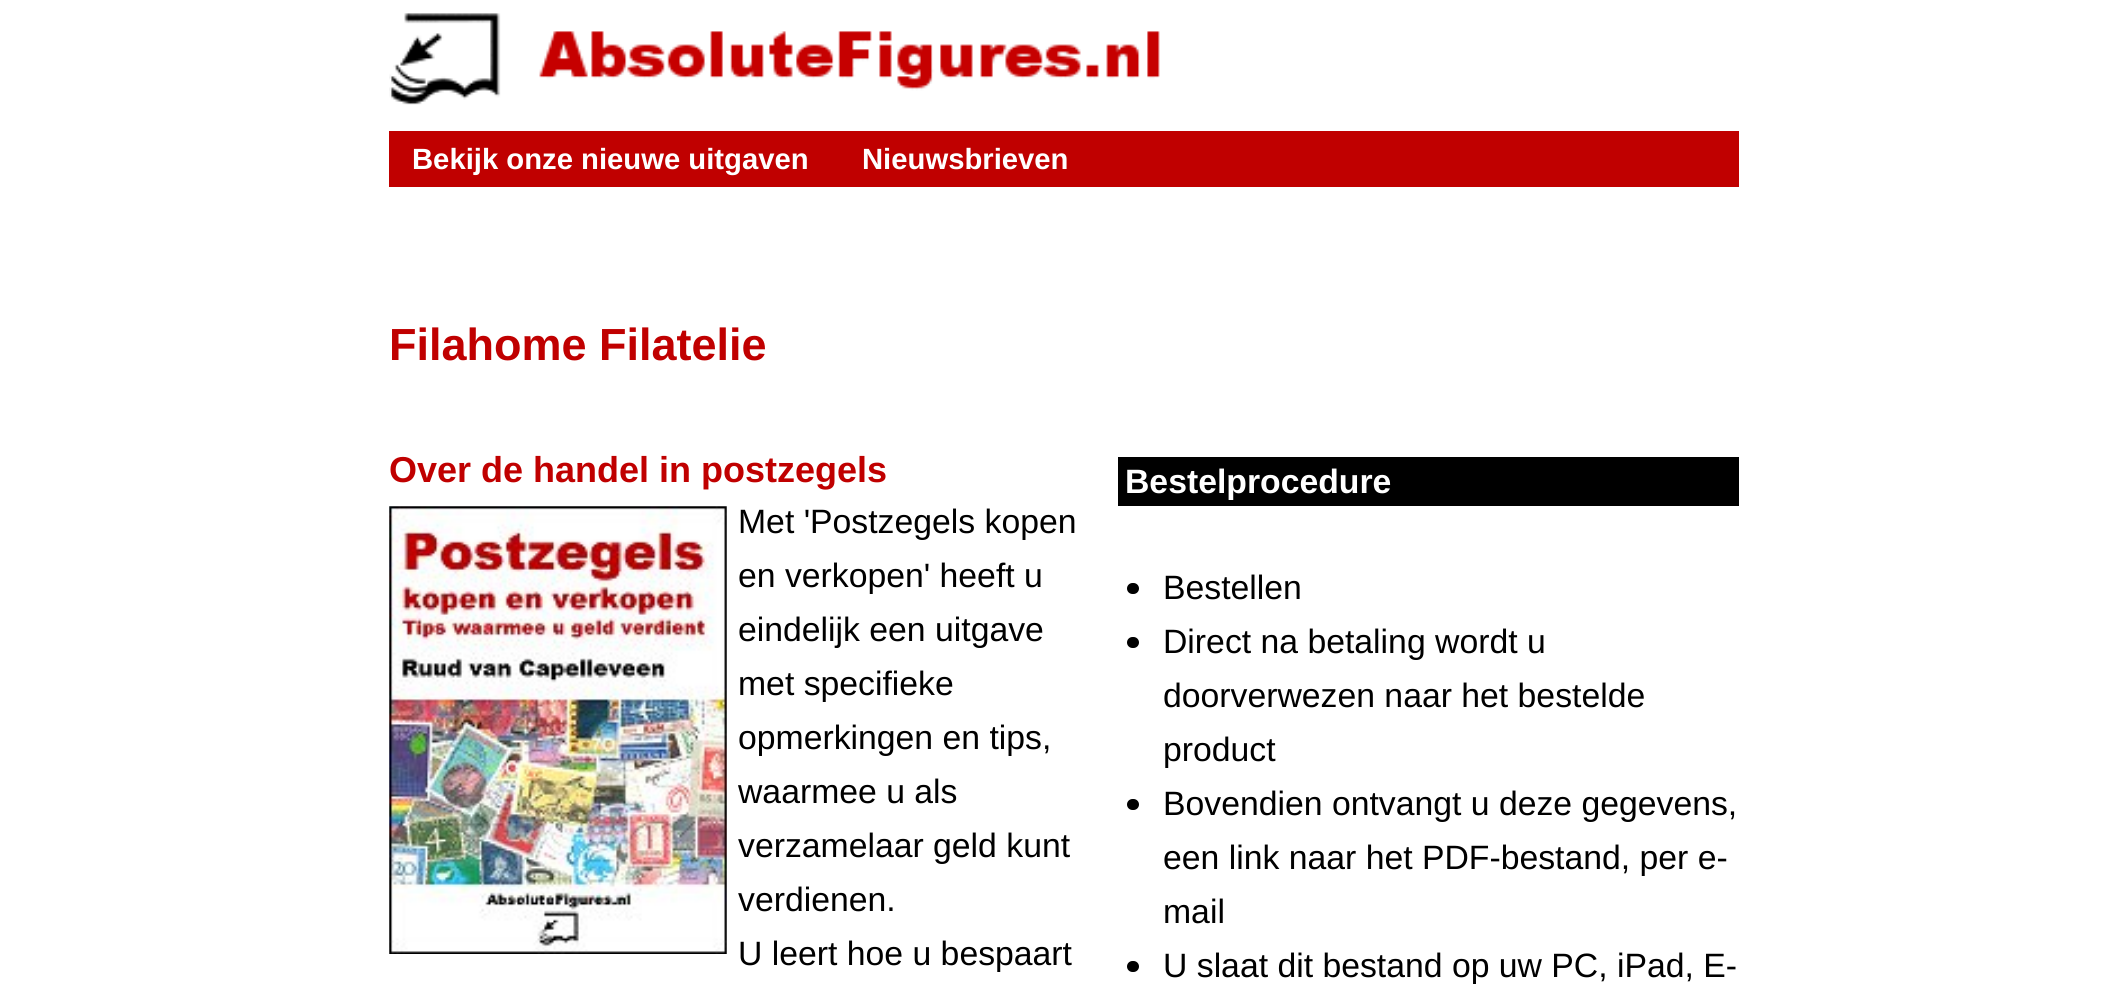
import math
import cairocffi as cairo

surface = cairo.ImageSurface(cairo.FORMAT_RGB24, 2127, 1003)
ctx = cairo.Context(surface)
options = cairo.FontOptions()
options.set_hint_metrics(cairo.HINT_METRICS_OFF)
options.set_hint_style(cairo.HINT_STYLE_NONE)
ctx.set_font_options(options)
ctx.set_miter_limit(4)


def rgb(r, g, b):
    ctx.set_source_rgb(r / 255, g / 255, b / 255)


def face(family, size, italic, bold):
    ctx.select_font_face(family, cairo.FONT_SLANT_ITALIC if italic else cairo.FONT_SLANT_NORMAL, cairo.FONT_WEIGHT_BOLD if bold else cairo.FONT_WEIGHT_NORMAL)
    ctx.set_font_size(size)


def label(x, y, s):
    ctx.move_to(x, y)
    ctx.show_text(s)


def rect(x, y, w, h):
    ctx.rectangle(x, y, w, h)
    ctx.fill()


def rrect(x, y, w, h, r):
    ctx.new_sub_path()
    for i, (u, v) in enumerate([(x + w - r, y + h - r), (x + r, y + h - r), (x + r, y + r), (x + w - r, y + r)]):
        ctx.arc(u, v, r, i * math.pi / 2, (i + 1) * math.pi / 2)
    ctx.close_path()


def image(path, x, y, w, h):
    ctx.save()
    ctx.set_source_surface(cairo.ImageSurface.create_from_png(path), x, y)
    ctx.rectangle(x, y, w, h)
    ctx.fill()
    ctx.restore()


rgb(255, 255, 255)
ctx.paint()
image('image0.png', 389, 13, 771, 92)
rgb(192, 0, 0)
rect(389, 131, 1350, 56)
face('Liberation Sans', 29.25, 0, 1)
rgb(255, 255, 255)
label(412, 169, 'Bekijk onze nieuwe uitgaven')
label(862, 169, 'Nieuwsbrieven')
face('Liberation Sans', 45, 0, 1)
rgb(192, 0, 0)
label(389, 360, 'Filahome Filatelie')
face('Liberation Sans', 36, 0, 1)
label(389, 482, 'Over de handel in postzegels')
image('image1.png', 389, 506, 338, 448)
face('Liberation Sans', 33.75, 0, 0)
rgb(0, 0, 0)
label(738, 533, 'Met \'Postzegels kopen')
label(738, 587, 'en verkopen\' heeft u')
label(738, 641, 'eindelijk een uitgave')
label(738, 695, 'met specifieke')
label(738, 749, 'opmerkingen en tips,')
label(738, 803, 'waarmee u als')
label(738, 857, 'verzamelaar geld kunt')
label(738, 911, 'verdienen.')
label(738, 965, 'U leert hoe u bespaart')
rect(1118, 457, 621, 49)
face('Liberation Sans', 33.75, 0, 1)
rgb(255, 255, 255)
label(1125, 493, 'Bestelprocedure')
rgb(0, 0, 0)
rrect(1127, 583, 12, 11, 5.5)
ctx.fill()
face('Liberation Sans', 33.75, 0, 0)
label(1163, 599, 'Bestellen')
rrect(1127, 637, 12, 11, 5.5)
ctx.fill()
label(1163, 653, 'Direct na betaling wordt u')
label(1163, 707, 'doorverwezen naar het bestelde')
label(1163, 761, 'product')
rrect(1127, 799, 12, 11, 5.5)
ctx.fill()
label(1163, 815, 'Bovendien ontvangt u deze gegevens,')
label(1163, 869, 'een link naar het PDF-bestand, per e-')
label(1163, 923, 'mail')
rrect(1127, 961, 12, 11, 5.5)
ctx.fill()
label(1163, 977, 'U slaat dit bestand op uw PC, iPad, E-')
surface.write_to_png('render.png')
